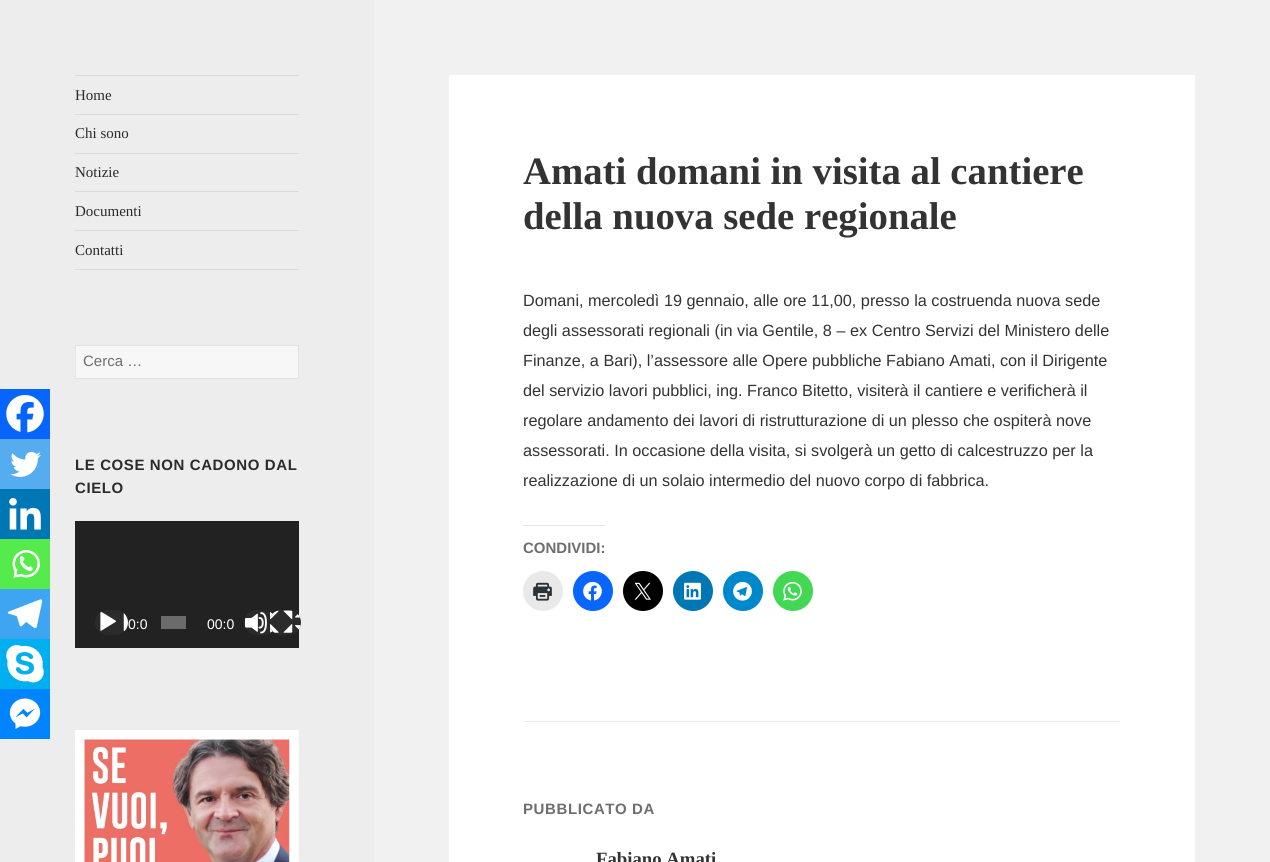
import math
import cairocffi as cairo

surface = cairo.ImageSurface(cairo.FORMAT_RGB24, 1270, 862)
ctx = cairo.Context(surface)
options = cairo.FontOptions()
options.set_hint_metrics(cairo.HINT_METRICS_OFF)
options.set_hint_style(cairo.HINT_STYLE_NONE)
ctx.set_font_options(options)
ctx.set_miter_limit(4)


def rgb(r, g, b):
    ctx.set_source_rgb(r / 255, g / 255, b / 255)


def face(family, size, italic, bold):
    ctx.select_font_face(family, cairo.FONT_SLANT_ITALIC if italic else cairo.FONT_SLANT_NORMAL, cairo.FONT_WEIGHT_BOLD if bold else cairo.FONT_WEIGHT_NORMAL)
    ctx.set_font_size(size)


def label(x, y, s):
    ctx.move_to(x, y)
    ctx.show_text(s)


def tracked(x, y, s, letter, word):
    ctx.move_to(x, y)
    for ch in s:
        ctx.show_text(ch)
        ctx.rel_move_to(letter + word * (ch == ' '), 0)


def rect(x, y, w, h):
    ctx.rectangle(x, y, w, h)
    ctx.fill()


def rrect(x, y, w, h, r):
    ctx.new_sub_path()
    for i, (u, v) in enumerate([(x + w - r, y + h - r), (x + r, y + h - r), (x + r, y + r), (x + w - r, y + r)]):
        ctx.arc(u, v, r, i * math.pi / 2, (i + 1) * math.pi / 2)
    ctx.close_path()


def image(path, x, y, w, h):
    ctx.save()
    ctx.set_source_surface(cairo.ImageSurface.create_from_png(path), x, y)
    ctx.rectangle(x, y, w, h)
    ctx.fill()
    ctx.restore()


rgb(241, 241, 241)
ctx.paint()
rgb(237, 237, 237)
rect(0, 0, 374, 862)
rgb(218, 218, 218)
rect(75, 75, 224, 1)
rect(75, 269, 224, 1)
face('Liberation Serif', 15, 0, 0)
rgb(43, 43, 43)
label(75, 100, 'Home')
rgb(218, 218, 218)
rect(75, 114, 224, 1)
rgb(43, 43, 43)
label(75, 138, 'Chi sono')
rgb(218, 218, 218)
rect(75, 153, 224, 1)
rgb(43, 43, 43)
label(75, 177, 'Notizie')
rgb(218, 218, 218)
rect(75, 191, 224, 1)
rgb(43, 43, 43)
label(75, 216, 'Documenti')
rgb(218, 218, 218)
rect(75, 230, 224, 1)
rgb(43, 43, 43)
label(75, 255, 'Contatti')
rgb(247, 247, 247)
ctx.rectangle(75.5, 345.5, 223, 33)
ctx.fill_preserve()
rgb(227, 227, 227)
ctx.set_line_width(1)
ctx.stroke()
face('Liberation Sans', 15, 0, 0)
rgb(110, 110, 110)
label(83, 366, 'Cerca …')
face('Liberation Sans', 15, 0, 1)
rgb(43, 43, 43)
tracked(75, 470, 'LE COSE NON CADONO DAL', 0.6, 0)
tracked(75, 493, 'CIELO', 0.6, 0)
rgb(34, 34, 34)
rect(75, 521, 224, 127)
rgb(43, 43, 43)
rrect(95, 610, 33, 25, 12.5)
ctx.fill()
image('image0.png', 100, 611, 28, 21)
face('Liberation Sans', 14, 0, 0)
rgb(255, 255, 255)
label(128, 629, '0:0')
rgb(107, 107, 107)
rect(161, 616, 25, 13)
rgb(255, 255, 255)
label(207, 629, '00:0')
rgb(43, 43, 43)
rrect(244, 610, 32, 25, 12.5)
ctx.fill()
image('image1.png', 245, 612, 28, 22)
rrect(269, 610, 32, 25, 12.5)
ctx.fill()
image('image2.png', 270, 610, 31, 23)
image('image3.png', 75, 730, 224, 132)
rgb(255, 255, 255)
rect(449, 75, 746, 787)
face('Liberation Serif', 38.75, 0, 1)
rgb(51, 51, 51)
label(523, 184, 'Amati domani in visita al cantiere')
label(523, 229, 'della nuova sede regionale')
rgb(7, 101, 254)
rect(0, 389, 50, 50)
image('image4.png', 6, 395, 38, 38)
rgb(85, 172, 238)
rect(0, 439, 50, 50)
image('image5.png', 10, 451, 31, 26)
rgb(0, 119, 181)
rect(0, 489, 50, 50)
image('image6.png', 9, 498, 32, 32)
rgb(85, 235, 76)
rect(0, 539, 50, 50)
image('image7.png', 12, 550, 28, 28)
rgb(61, 165, 241)
rect(0, 589, 50, 50)
image('image8.png', 7, 599, 36, 30)
rgb(0, 175, 240)
rect(0, 639, 50, 50)
image('image9.png', 6, 645, 38, 38)
rgb(0, 132, 255)
rect(0, 689, 50, 50)
image('image10.png', 9, 698, 32, 31)
face('Liberation Sans', 16.25, 0, 0)
rgb(51, 51, 51)
label(523, 306, 'Domani, mercoledì 19 gennaio, alle ore 11,00, presso la costruenda nuova sede')
label(523, 336, 'degli assessorati regionali (in via Gentile, 8 – ex Centro Servizi del Ministero delle')
label(523, 366, 'Finanze, a Bari), l’assessore alle Opere pubbliche Fabiano Amati, con il Dirigente')
label(523, 396, 'del servizio lavori pubblici, ing. Franco Bitetto, visiterà il cantiere e verificherà il')
label(523, 426, 'regolare andamento dei lavori di ristrutturazione di un plesso che ospiterà nove')
label(523, 456, 'assessorati. In occasione della visita, si svolgerà un getto di calcestruzzo per la')
label(523, 486, 'realizzazione di un solaio intermedio del nuovo corpo di fabbrica.')
rgb(231, 231, 232)
rect(523, 525, 82, 1)
face('Liberation Sans', 15, 0, 1)
rgb(110, 110, 110)
label(523, 553, 'CONDIVIDI:')
rgb(233, 233, 233)
ctx.new_path()
ctx.arc(543, 591, 20, 0, 2 * math.pi)
ctx.fill()
image('image11.png', 533, 582, 19, 19)
rgb(8, 102, 255)
ctx.arc(593, 591, 20, 0, 2 * math.pi)
ctx.fill()
image('image12.png', 583, 581, 19, 20)
rgb(0, 0, 0)
ctx.arc(643, 591, 20, 0, 2 * math.pi)
ctx.fill()
image('image13.png', 634, 582, 17, 18)
rgb(0, 119, 181)
ctx.arc(693, 591, 20, 0, 2 * math.pi)
ctx.fill()
image('image14.png', 684, 582, 17, 18)
rgb(0, 136, 204)
ctx.arc(743, 591, 20, 0, 2 * math.pi)
ctx.fill()
image('image15.png', 733, 581, 19, 20)
rgb(67, 216, 84)
ctx.arc(793, 591, 20, 0, 2 * math.pi)
ctx.fill()
image('image16.png', 783, 581, 19, 20)
rgb(235, 235, 235)
rect(523, 721, 597, 1)
rgb(110, 110, 110)
tracked(523, 814, 'PUBBLICATO DA', 0.6, 0)
face('Liberation Serif', 18.75, 0, 1)
rgb(51, 51, 51)
label(596, 865, 'Fabiano Amati')
surface.write_to_png('render.png')
